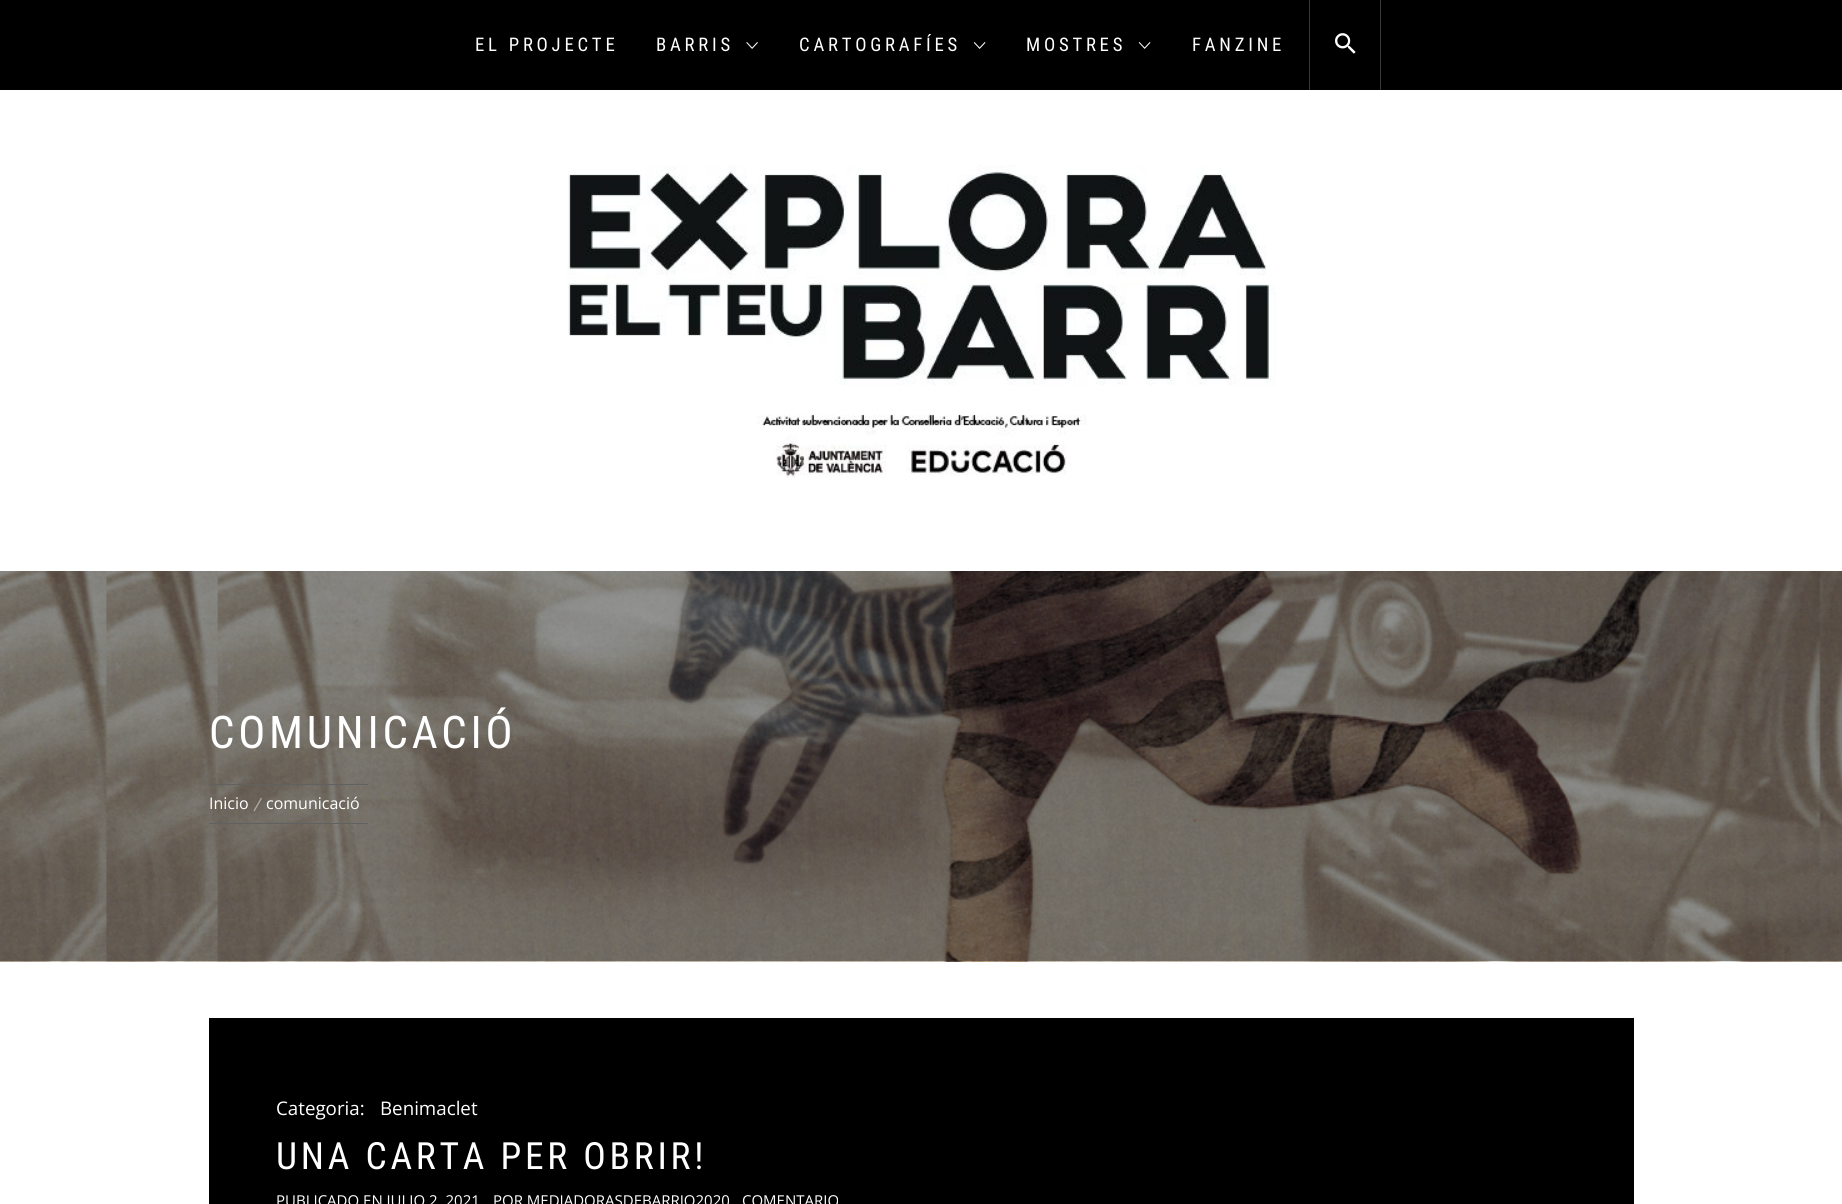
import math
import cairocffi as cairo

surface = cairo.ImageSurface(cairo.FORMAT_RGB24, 1842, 1204)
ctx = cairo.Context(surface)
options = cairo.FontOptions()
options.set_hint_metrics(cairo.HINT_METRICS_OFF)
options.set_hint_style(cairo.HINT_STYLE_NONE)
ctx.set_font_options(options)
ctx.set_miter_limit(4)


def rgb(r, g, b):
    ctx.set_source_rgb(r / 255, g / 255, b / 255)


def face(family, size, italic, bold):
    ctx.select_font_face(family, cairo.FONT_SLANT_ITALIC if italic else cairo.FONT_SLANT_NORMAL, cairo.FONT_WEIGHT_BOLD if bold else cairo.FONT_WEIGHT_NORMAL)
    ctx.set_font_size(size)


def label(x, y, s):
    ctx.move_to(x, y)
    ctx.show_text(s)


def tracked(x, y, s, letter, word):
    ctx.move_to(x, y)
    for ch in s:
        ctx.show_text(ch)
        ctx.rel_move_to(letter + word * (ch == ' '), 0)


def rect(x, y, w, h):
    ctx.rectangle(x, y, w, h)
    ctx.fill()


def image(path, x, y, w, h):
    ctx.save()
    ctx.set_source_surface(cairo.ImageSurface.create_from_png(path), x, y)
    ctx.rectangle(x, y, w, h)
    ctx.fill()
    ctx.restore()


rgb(255, 255, 255)
ctx.paint()
rgb(0, 0, 0)
rect(0, 0, 1842, 90)
face('Roboto Condensed', 18.75, 0, 0)
rgb(255, 255, 255)
tracked(475, 51, 'EL PROJECTE', 3.75, 0)
tracked(656, 51, 'BARRIS', 3.75, 0)
image('image0.png', 746, 42, 12, 7)
tracked(799, 51, 'CARTOGRAFÍES', 3.75, 0)
image('image1.png', 973, 42, 13, 7)
tracked(1026, 51, 'MOSTRES', 3.75, 0)
image('image1.png', 1138, 42, 13, 7)
tracked(1192, 51, 'FANZINE', 3.75, 0)
rgb(56, 56, 56)
rect(1380, 0, 1, 90)
rect(1309, 0, 1, 90)
image('image2.png', 1335, 33, 21, 21)
image('image3.png', 567, 165, 709, 313)
image('image4.png', 0, 571, 1842, 391)
face('Roboto Condensed', 45, 0, 0)
rgb(255, 255, 255)
tracked(209, 748, 'COMUNICACIÓ', 3.75, 0)
rgb(97, 97, 97)
rect(209, 784, 159, 1)
rect(209, 823, 159, 1)
face('Open Sans', 16, 0, 0)
rgb(255, 255, 255)
label(209, 809, 'Inicio')
ctx.set_source_rgba(1, 1, 1, 0.45)
ctx.new_path()
ctx.move_to(261, 797.5)
ctx.line_to(262, 798.5)
ctx.line_to(254.5, 811.5)
ctx.line_to(253.5, 810.5)
ctx.close_path()
ctx.fill()
rgb(255, 255, 255)
label(266, 809, 'comunicació')
rgb(0, 0, 0)
rect(209, 1018, 1425, 186)
face('Open Sans', 18.75, 0, 0)
rgb(255, 255, 255)
label(276, 1115, 'Categoria:')
label(380, 1115, 'Benimaclet')
face('Roboto Condensed', 37.5, 0, 0)
tracked(276, 1169, 'UNA CARTA PER OBRIR!', 3.75, 0)
face('Open Sans', 15, 0, 0)
label(276, 1206, 'PUBLICADO EN JULIO 2, 2021')
label(493, 1206, 'POR MEDIADORASDEBARRIO2020')
label(742, 1206, 'COMENTARIO')
surface.write_to_png('render.png')
